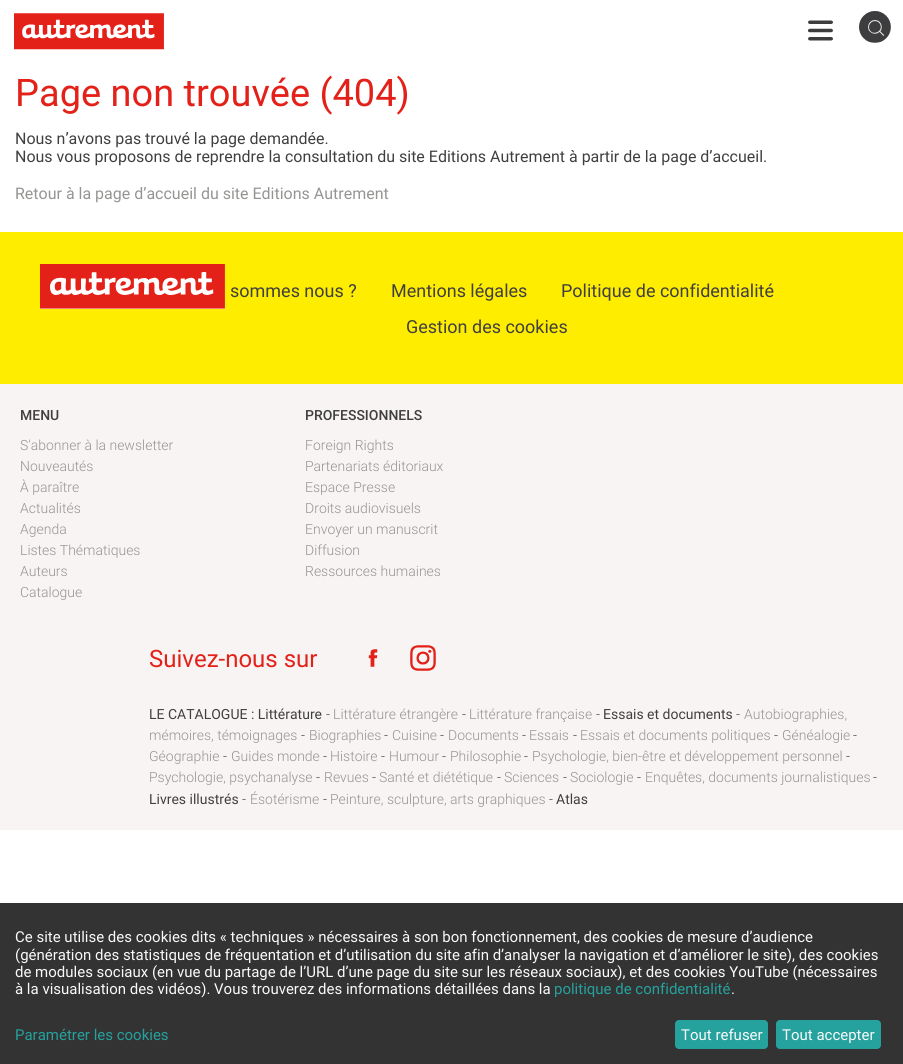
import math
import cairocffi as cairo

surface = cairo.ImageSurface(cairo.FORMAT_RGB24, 903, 1064)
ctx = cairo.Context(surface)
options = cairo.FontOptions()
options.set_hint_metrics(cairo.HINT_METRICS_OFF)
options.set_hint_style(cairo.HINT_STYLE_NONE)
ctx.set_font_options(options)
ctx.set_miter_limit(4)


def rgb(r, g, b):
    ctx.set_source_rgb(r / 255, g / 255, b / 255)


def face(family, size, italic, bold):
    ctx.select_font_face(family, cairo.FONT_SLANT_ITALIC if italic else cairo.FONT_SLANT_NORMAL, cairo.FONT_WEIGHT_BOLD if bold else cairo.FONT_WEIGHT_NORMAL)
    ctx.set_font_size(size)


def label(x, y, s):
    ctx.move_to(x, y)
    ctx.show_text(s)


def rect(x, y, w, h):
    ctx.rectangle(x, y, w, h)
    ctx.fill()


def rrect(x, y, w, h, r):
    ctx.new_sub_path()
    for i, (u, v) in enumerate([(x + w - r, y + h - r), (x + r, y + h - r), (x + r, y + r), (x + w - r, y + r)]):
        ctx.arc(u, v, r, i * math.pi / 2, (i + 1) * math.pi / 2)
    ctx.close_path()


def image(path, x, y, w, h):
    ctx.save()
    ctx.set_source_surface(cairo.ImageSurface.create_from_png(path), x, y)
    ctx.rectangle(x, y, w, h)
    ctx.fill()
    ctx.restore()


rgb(255, 255, 255)
ctx.paint()
image('image0.png', 14, 13, 150, 37)
image('image1.png', 808, 20, 25, 21)
image('image2.png', 859, 11, 32, 32)
face('Roboto', 38, 0, 0)
rgb(227, 33, 25)
label(15, 106, 'Page non trouvée (404)')
face('Roboto', 16, 0, 0)
rgb(64, 63, 63)
label(15, 144, 'Nous n’avons pas trouvé la page demandée.')
label(15, 162, 'Nous vous proposons de reprendre la consultation du site Editions Autrement à partir de la page d’accueil.')
rgb(148, 148, 146)
label(15, 199, 'Retour à la page d’accueil du site Editions Autrement')
rgb(255, 237, 0)
rect(0, 232, 903, 152)
rgb(255, 255, 255)
rect(40, 264, 185, 45)
image('image3.png', 40, 264, 185, 45)
face('Roboto', 18, 0, 0)
rgb(64, 63, 63)
label(230, 297, 'sommes nous ?')
label(391, 297, 'Mentions légales')
label(561, 297, 'Politique de confidentialité')
label(406, 333, 'Gestion des cookies')
rgb(247, 244, 243)
rect(0, 384, 903, 446)
face('Roboto Medium', 14, 0, 0)
rgb(64, 63, 63)
label(20, 420, 'MENU')
face('Roboto Light', 14, 0, 0)
rgb(148, 148, 146)
label(20, 450, 'S\'abonner à la newsletter')
label(20, 471, 'Nouveautés')
label(20, 492, 'À paraître')
label(20, 513, 'Actualités')
label(20, 534, 'Agenda')
label(20, 555, 'Listes Thématiques')
label(20, 576, 'Auteurs')
label(20, 597, 'Catalogue')
face('Roboto Medium', 14, 0, 0)
rgb(64, 63, 63)
label(305, 420, 'PROFESSIONNELS')
face('Roboto Light', 14, 0, 0)
rgb(148, 148, 146)
label(305, 450, 'Foreign Rights')
label(305, 471, 'Partenariats éditoriaux')
label(305, 492, 'Espace Presse')
label(305, 513, 'Droits audiovisuels')
label(305, 534, 'Envoyer un manuscrit')
label(305, 555, 'Diffusion')
label(305, 576, 'Ressources humaines')
face('Roboto', 24, 0, 0)
rgb(227, 33, 25)
label(149, 667, 'Suivez-nous sur')
image('image4.png', 368, 649, 10, 18)
image('image5.png', 410, 645, 26, 26)
face('Roboto', 14, 0, 0)
rgb(64, 63, 63)
label(149, 719, 'LE CATALOGUE : Littérature')
face('Roboto Light', 14, 0, 0)
label(326, 719, '-')
rgb(148, 148, 146)
label(333, 719, 'Littérature étrangère')
rgb(64, 63, 63)
label(462, 719, '-')
rgb(148, 148, 146)
label(469, 719, 'Littérature française')
rgb(64, 63, 63)
label(596, 719, '-')
face('Roboto', 14, 0, 0)
label(603, 719, 'Essais et documents')
face('Roboto Light', 14, 0, 0)
label(736, 719, '-')
rgb(148, 148, 146)
label(744, 719, 'Autobiographies,')
label(149, 740, 'mémoires, témoignages')
rgb(64, 63, 63)
label(301, 740, '-')
rgb(148, 148, 146)
label(309, 740, 'Biographies')
rgb(64, 63, 63)
label(384, 740, '-')
rgb(148, 148, 146)
label(392, 740, 'Cuisine')
rgb(64, 63, 63)
label(440, 740, '-')
rgb(148, 148, 146)
label(448, 740, 'Documents')
rgb(64, 63, 63)
label(522, 740, '-')
rgb(148, 148, 146)
label(529, 740, 'Essais')
rgb(64, 63, 63)
label(573, 740, '-')
rgb(148, 148, 146)
label(580, 740, 'Essais et documents politiques')
rgb(64, 63, 63)
label(774, 740, '-')
rgb(148, 148, 146)
label(782, 740, 'Généalogie')
rgb(64, 63, 63)
label(853, 740, '-')
rgb(148, 148, 146)
label(149, 761, 'Géographie')
rgb(64, 63, 63)
label(223, 761, '-')
rgb(148, 148, 146)
label(231, 761, 'Guides monde')
rgb(64, 63, 63)
label(323, 761, '-')
rgb(148, 148, 146)
label(330, 761, 'Histoire')
rgb(64, 63, 63)
label(381, 761, '-')
rgb(148, 148, 146)
label(389, 761, 'Humour')
rgb(64, 63, 63)
label(442, 761, '-')
rgb(148, 148, 146)
label(450, 761, 'Philosophie')
rgb(64, 63, 63)
label(524, 761, '-')
rgb(148, 148, 146)
label(532, 761, 'Psychologie, bien-être et développement personnel')
rgb(64, 63, 63)
label(846, 761, '-')
rgb(148, 148, 146)
label(149, 782, 'Psychologie, psychanalyse')
rgb(64, 63, 63)
label(316, 782, '-')
rgb(148, 148, 146)
label(324, 782, 'Revues')
rgb(64, 63, 63)
label(372, 782, '-')
rgb(148, 148, 146)
label(379, 782, 'Santé et diététique')
rgb(64, 63, 63)
label(497, 782, '-')
rgb(148, 148, 146)
label(504, 782, 'Sciences')
rgb(64, 63, 63)
label(563, 782, '-')
rgb(148, 148, 146)
label(570, 782, 'Sociologie')
rgb(64, 63, 63)
label(637, 782, '-')
rgb(148, 148, 146)
label(645, 782, 'Enquêtes, documents journalistiques')
rgb(64, 63, 63)
label(873, 782, '-')
face('Roboto', 14, 0, 0)
label(149, 804, 'Livres illustrés')
face('Roboto Light', 14, 0, 0)
label(242, 804, '-')
rgb(148, 148, 146)
label(250, 804, 'Ésotérisme')
rgb(64, 63, 63)
label(323, 804, '-')
rgb(148, 148, 146)
label(330, 804, 'Peinture, sculpture, arts graphiques')
rgb(64, 63, 63)
label(549, 804, '-')
face('Roboto', 14, 0, 0)
label(556, 804, 'Atlas')
rgb(51, 51, 51)
rect(0, 903, 903, 161)
face('Roboto', 15, 0, 0)
rgb(250, 250, 250)
label(15, 942, 'Ce site utilise des cookies dits « techniques » nécessaires à son bon fonctionnement, des cookies de mesure d’audience')
label(15, 960, '(génération des statistiques de fréquentation et d’utilisation du site afin d’analyser la navigation et d’améliorer le site), des cookies')
label(15, 977, 'de modules sociaux (en vue du partage de l’URL d’une page du site sur les réseaux sociaux), et des cookies YouTube (nécessaires')
label(15, 994, 'à la visualisation des vidéos). Vous trouverez des informations détaillées dans la')
rgb(37, 162, 158)
label(554, 994, 'politique de confidentialité')
rgb(250, 250, 250)
label(731, 994, '.')
rgb(37, 162, 158)
label(15, 1040, 'Paramétrer les cookies')
rrect(675, 1020, 93, 29, 4)
ctx.fill()
rgb(250, 250, 250)
label(681, 1040, 'Tout refuser')
rgb(37, 162, 158)
rrect(776, 1020, 105, 29, 4)
ctx.fill()
rgb(250, 250, 250)
label(782, 1040, 'Tout accepter')
surface.write_to_png('render.png')
